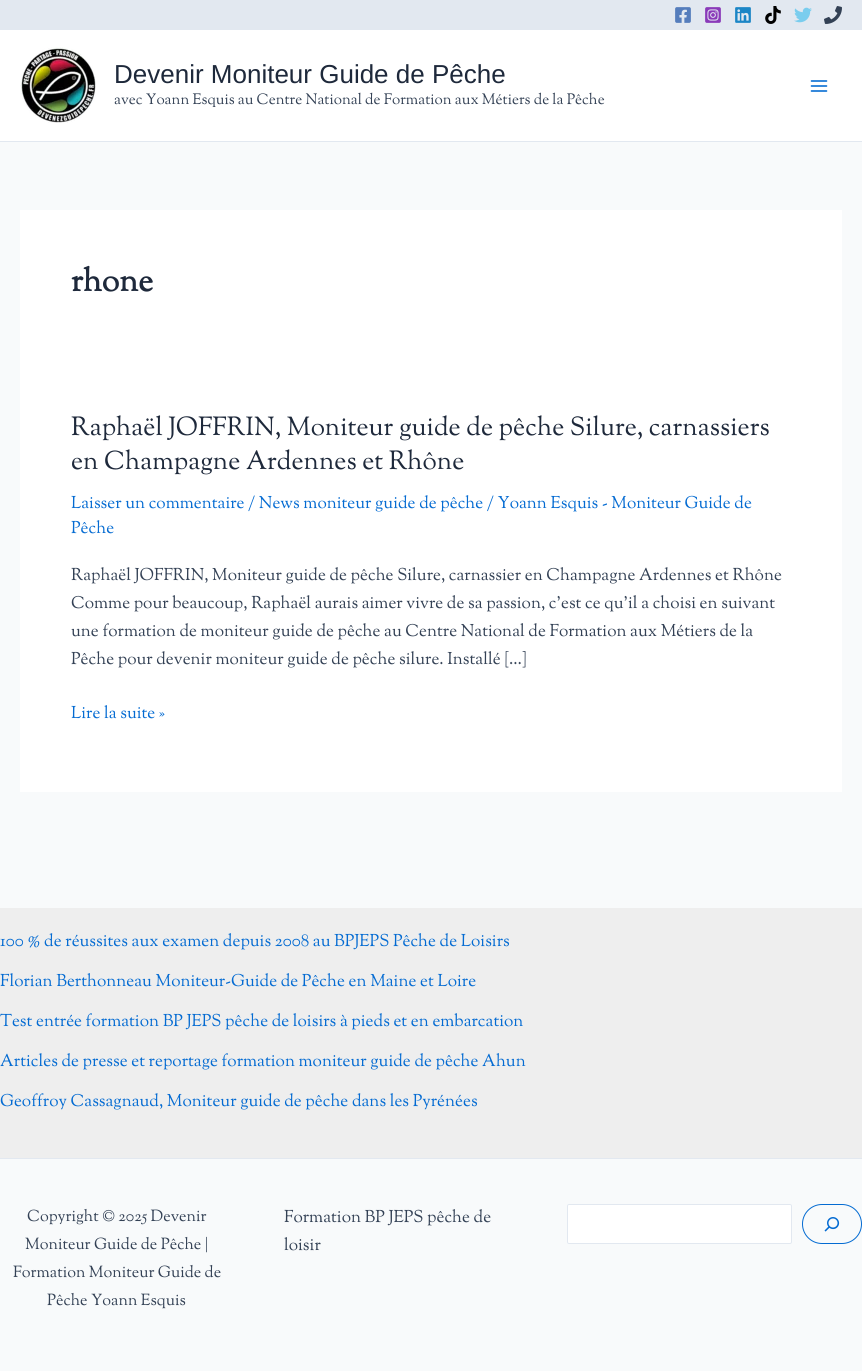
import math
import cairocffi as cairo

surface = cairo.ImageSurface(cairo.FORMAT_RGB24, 862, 1371)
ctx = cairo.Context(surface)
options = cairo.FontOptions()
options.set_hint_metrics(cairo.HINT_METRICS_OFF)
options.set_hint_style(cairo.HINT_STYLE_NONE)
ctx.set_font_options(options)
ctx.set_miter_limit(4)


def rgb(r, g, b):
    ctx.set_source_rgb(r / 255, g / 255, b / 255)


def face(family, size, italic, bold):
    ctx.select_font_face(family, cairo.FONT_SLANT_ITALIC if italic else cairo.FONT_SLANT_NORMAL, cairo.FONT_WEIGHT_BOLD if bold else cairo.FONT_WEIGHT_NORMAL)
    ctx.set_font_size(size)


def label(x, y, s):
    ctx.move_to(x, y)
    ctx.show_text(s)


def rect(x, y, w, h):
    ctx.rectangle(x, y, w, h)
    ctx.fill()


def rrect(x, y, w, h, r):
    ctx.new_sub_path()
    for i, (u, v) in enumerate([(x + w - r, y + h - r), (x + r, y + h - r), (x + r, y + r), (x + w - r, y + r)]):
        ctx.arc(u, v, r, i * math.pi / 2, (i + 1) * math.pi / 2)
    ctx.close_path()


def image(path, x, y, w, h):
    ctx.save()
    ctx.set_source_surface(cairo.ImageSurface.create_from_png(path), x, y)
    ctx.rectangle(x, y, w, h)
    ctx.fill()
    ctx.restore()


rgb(248, 250, 251)
ctx.paint()
rgb(226, 232, 240)
rect(0, 0, 862, 30)
image('image0.png', 675, 7, 16, 16)
image('image1.png', 705, 7, 16, 16)
image('image2.png', 735, 7, 16, 16)
image('image3.png', 765, 6, 16, 18)
image('image4.png', 794, 7, 18, 16)
image('image5.png', 824, 6, 18, 18)
rgb(255, 255, 255)
rect(0, 30, 862, 111)
rgb(226, 232, 240)
rect(0, 141, 862, 1)
image('image6.png', 20, 47, 76, 76)
face('Liberation Sans', 26, 0, 0)
rgb(30, 41, 59)
label(114, 83, 'Devenir Moniteur Guide de Pêche')
face('Sorts Mill Goudy', 15, 0, 0)
rgb(51, 65, 85)
label(114, 104, 'avec Yoann Esquis au Centre National de Formation aux Métiers de la Pêche')
image('image7.png', 810, 80, 18, 12)
rgb(255, 255, 255)
rect(20, 210, 822, 582)
face('Sorts Mill Goudy', 32, 0, 1)
rgb(30, 41, 59)
label(71, 291, 'rhone')
face('Sorts Mill Goudy', 26, 0, 0)
label(71, 435, 'Raphaël JOFFRIN, Moniteur guide de pêche Silure, carnassiers')
label(71, 469, 'en Champagne Ardennes et Rhône')
face('Sorts Mill Goudy', 17, 0, 0)
rgb(4, 107, 210)
label(71, 508, 'Laisser un commentaire / News moniteur guide de pêche / Yoann Esquis - Moniteur Guide de')
label(71, 533, 'Pêche')
rgb(51, 65, 85)
label(71, 580, 'Raphaël JOFFRIN, Moniteur guide de pêche Silure, carnassier en Champagne Ardennes et Rhône')
label(71, 608, 'Comme pour beaucoup, Raphaël aurais aimer vivre de sa passion, c’est ce qu’il a choisi en suivant')
label(71, 636, 'une formation de moniteur guide de pêche au Centre National de Formation aux Métiers de la')
label(71, 664, 'Pêche pour devenir moniteur guide de pêche silure. Installé […]')
rgb(4, 107, 210)
label(71, 718, 'Lire la suite »')
rgb(238, 238, 238)
rect(0, 908, 862, 250)
rgb(4, 107, 210)
label(0, 946, '100 % de réussites aux examen depuis 2008 au BPJEPS Pêche de Loisirs')
label(0, 986, 'Florian Berthonneau Moniteur-Guide de Pêche en Maine et Loire')
label(0, 1026, 'Test entrée formation BP JEPS pêche de loisirs à pieds et en embarcation')
label(0, 1066, 'Articles de presse et reportage formation moniteur guide de pêche Ahun')
label(0, 1106, 'Geoffroy Cassagnaud, Moniteur guide de pêche dans les Pyrénées')
rgb(226, 232, 240)
rect(0, 1158, 862, 1)
face('Sorts Mill Goudy', 16, 0, 0)
rgb(51, 65, 85)
label(27, 1221, 'Copyright © 2025 Devenir')
label(25, 1249, 'Moniteur Guide de Pêche |')
label(13, 1277, 'Formation Moniteur Guide de')
label(47, 1305, 'Pêche Yoann Esquis')
face('Sorts Mill Goudy', 17, 0, 0)
label(284, 1222, 'Formation BP JEPS pêche de')
label(284, 1250, 'loisir')
rgb(255, 255, 255)
rrect(567.5, 1204.5, 224, 39, 1.5)
ctx.fill_preserve()
rgb(226, 232, 240)
ctx.set_line_width(1)
ctx.stroke()
rrect(802.5, 1204.5, 59, 39, 19.5)
rgb(4, 107, 210)
ctx.stroke()
image('image8.png', 824, 1217, 16, 15)
surface.write_to_png('render.png')
